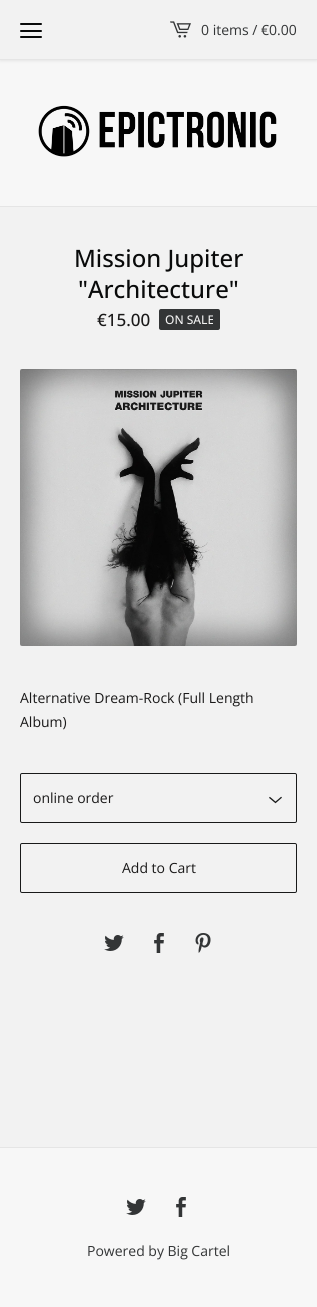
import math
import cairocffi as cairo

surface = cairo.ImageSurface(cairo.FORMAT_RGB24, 317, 1307)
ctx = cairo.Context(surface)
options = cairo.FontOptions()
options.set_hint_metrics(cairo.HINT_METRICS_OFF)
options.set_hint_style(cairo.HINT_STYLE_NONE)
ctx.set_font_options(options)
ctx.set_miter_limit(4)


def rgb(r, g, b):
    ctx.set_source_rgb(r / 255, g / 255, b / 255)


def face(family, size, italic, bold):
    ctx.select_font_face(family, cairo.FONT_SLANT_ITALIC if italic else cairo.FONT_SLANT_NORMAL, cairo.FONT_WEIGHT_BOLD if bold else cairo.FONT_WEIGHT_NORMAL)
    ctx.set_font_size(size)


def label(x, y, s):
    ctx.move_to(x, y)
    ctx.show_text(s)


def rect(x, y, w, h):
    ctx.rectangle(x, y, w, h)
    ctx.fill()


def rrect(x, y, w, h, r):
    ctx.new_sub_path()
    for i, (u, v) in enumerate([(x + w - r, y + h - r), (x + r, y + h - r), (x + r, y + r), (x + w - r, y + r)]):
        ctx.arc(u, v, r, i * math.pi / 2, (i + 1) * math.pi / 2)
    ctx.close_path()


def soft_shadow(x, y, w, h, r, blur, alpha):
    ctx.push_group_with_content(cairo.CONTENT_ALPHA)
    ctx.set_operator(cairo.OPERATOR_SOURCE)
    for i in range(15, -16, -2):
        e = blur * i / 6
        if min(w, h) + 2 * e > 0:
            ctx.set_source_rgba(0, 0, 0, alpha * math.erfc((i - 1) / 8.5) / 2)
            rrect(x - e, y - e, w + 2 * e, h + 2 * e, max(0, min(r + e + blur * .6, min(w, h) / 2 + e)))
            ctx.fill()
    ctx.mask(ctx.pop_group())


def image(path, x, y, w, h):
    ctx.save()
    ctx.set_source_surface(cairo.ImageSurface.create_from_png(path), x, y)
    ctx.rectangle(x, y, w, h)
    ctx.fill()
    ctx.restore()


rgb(242, 242, 242)
ctx.paint()
rgb(247, 247, 247)
rect(0, 60, 317, 146)
rgb(229, 229, 229)
soft_shadow(0, 1, 317, 60, 0, 1.5, 1)
rgb(242, 242, 242)
rect(0, 0, 317, 59)
rgb(229, 229, 229)
rect(0, 59, 317, 1)
rgb(9, 10, 10)
rrect(20, 23, 22, 2, 1)
ctx.fill()
rrect(20, 30, 22, 2, 1)
ctx.fill()
rrect(20, 36, 22, 2, 1)
ctx.fill()
image('image0.png', 170, 21, 21, 17)
face('Open Sans', 14, 0, 0)
rgb(51, 53, 54)
label(201, 35, '0 items / €0.00')
rgb(229, 229, 229)
rect(0, 206, 317, 1)
image('image1.png', 38, 105, 239, 52)
face('Open Sans Medium', 24, 0, 0)
rgb(9, 10, 10)
label(74, 267, 'Mission Jupiter')
label(78, 298, '"Architecture"')
face('Open Sans Medium', 17, 0, 0)
rgb(26, 25, 25)
label(97, 326, '€15.00')
rgb(51, 53, 54)
rrect(159, 309, 61, 21, 2)
ctx.fill()
face('Open Sans Medium', 12, 0, 0)
rgb(242, 242, 242)
label(165, 324, 'ON SALE')
image('image2.png', 20, 369, 277, 277)
face('Open Sans', 14, 0, 0)
rgb(26, 25, 25)
label(20, 703, 'Alternative Dream-Rock (Full Length')
label(20, 727, 'Album)')
rrect(20.5, 773.5, 276, 49, 1.5)
rgb(25, 26, 26)
ctx.set_line_width(1)
ctx.stroke()
rgb(26, 25, 25)
label(33, 803, 'online order')
image('image3.png', 269, 796, 13, 8)
rrect(20.5, 843.5, 276, 49, 1.5)
rgb(25, 26, 26)
ctx.stroke()
rgb(26, 25, 25)
label(122, 873, 'Add to Cart')
image('image4.png', 104, 935, 20, 16)
image('image5.png', 154, 933, 10, 20)
image('image6.png', 195, 933, 16, 20)
rgb(247, 247, 247)
rect(0, 1148, 317, 159)
rgb(229, 229, 229)
rect(0, 1147, 317, 1)
image('image7.png', 126, 1199, 20, 16)
image('image8.png', 176, 1197, 10, 20)
rgb(51, 53, 54)
label(87, 1256, 'Powered by Big Cartel')
surface.write_to_png('render.png')
